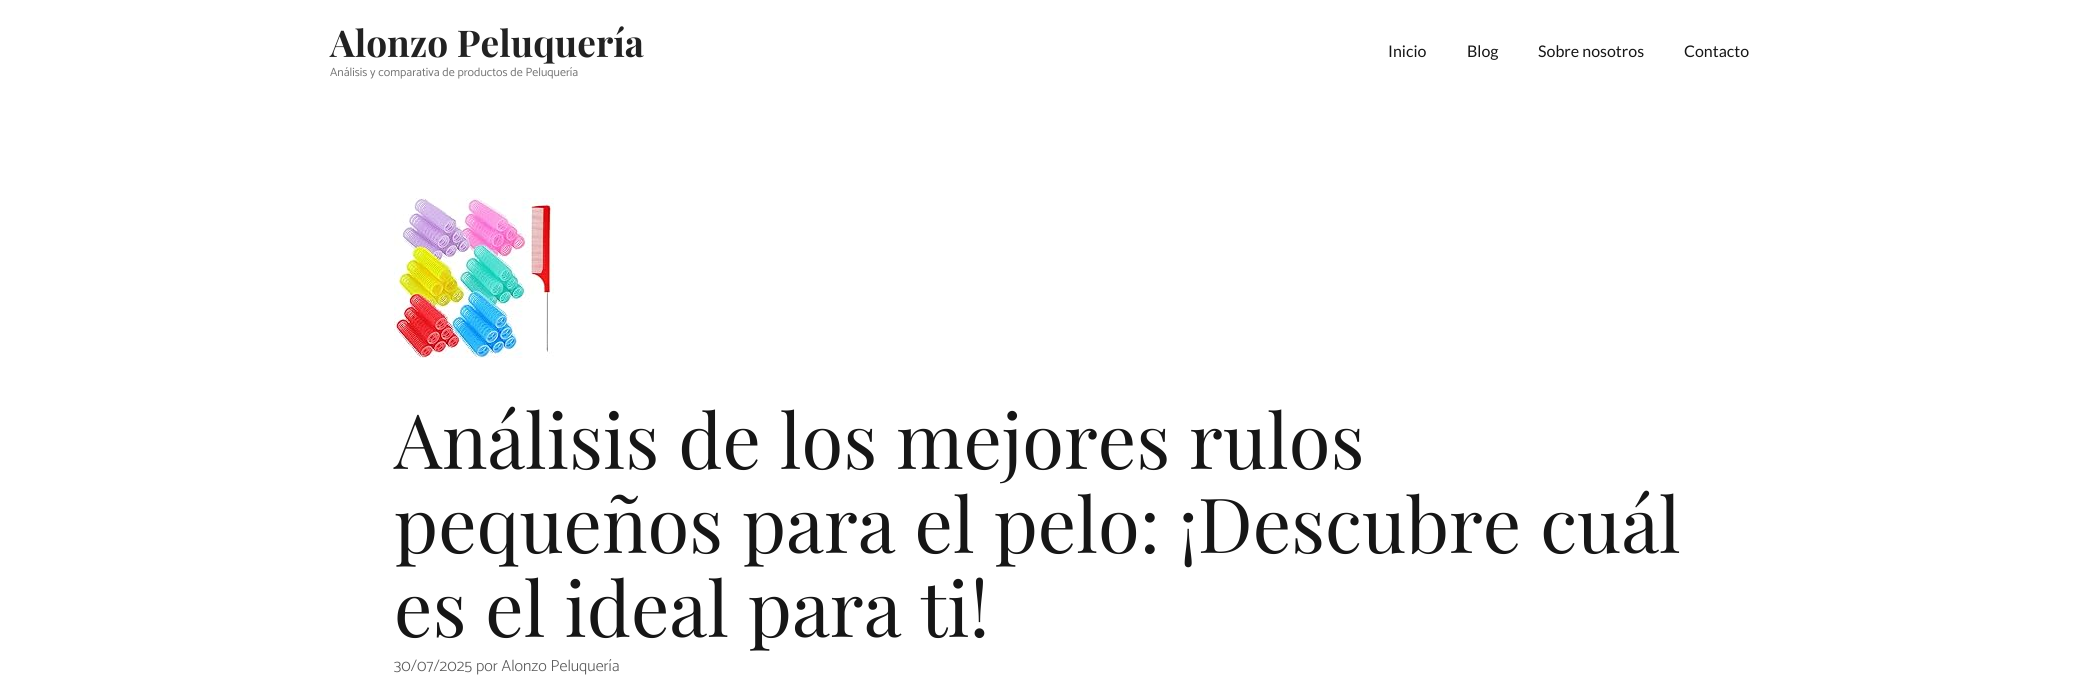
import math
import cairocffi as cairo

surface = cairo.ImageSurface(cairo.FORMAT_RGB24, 2099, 677)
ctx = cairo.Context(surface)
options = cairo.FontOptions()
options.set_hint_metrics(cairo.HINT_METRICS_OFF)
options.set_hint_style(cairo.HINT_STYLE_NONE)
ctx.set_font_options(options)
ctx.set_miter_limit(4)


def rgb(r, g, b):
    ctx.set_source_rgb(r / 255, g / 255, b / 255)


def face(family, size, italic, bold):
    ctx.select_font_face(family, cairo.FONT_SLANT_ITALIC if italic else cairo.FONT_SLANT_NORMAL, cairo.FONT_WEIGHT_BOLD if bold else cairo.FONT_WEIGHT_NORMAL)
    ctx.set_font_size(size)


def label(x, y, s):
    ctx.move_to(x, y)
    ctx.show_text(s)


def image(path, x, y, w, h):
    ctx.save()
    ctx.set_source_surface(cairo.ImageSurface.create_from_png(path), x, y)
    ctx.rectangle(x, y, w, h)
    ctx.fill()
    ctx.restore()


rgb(255, 255, 255)
ctx.paint()
face('Playfair Display', 37, 0, 1)
rgb(34, 34, 34)
label(330, 57, 'Alonzo Peluquería')
face('Catamaran', 12, 0, 0)
rgb(117, 117, 117)
label(330, 76, 'Análisis y comparativa de productos de Peluquería')
face('Lato', 16, 0, 0)
rgb(22, 22, 22)
label(1388, 57, 'Inicio')
label(1467, 57, 'Blog')
label(1538, 57, 'Sobre nosotros')
label(1684, 57, 'Contacto')
image('image0.png', 394, 198, 160, 160)
face('Playfair Display', 76, 0, 0)
label(394, 469, 'Análisis de los mejores rulos')
label(394, 553, 'pequeños para el pelo: ¡Descubre cuál')
label(394, 637, 'es el ideal para ti!')
face('Catamaran Light', 16.1, 0, 0)
rgb(89, 89, 89)
label(394, 671, '30/07/2025 por Alonzo Peluquería')
surface.write_to_png('render.png')
